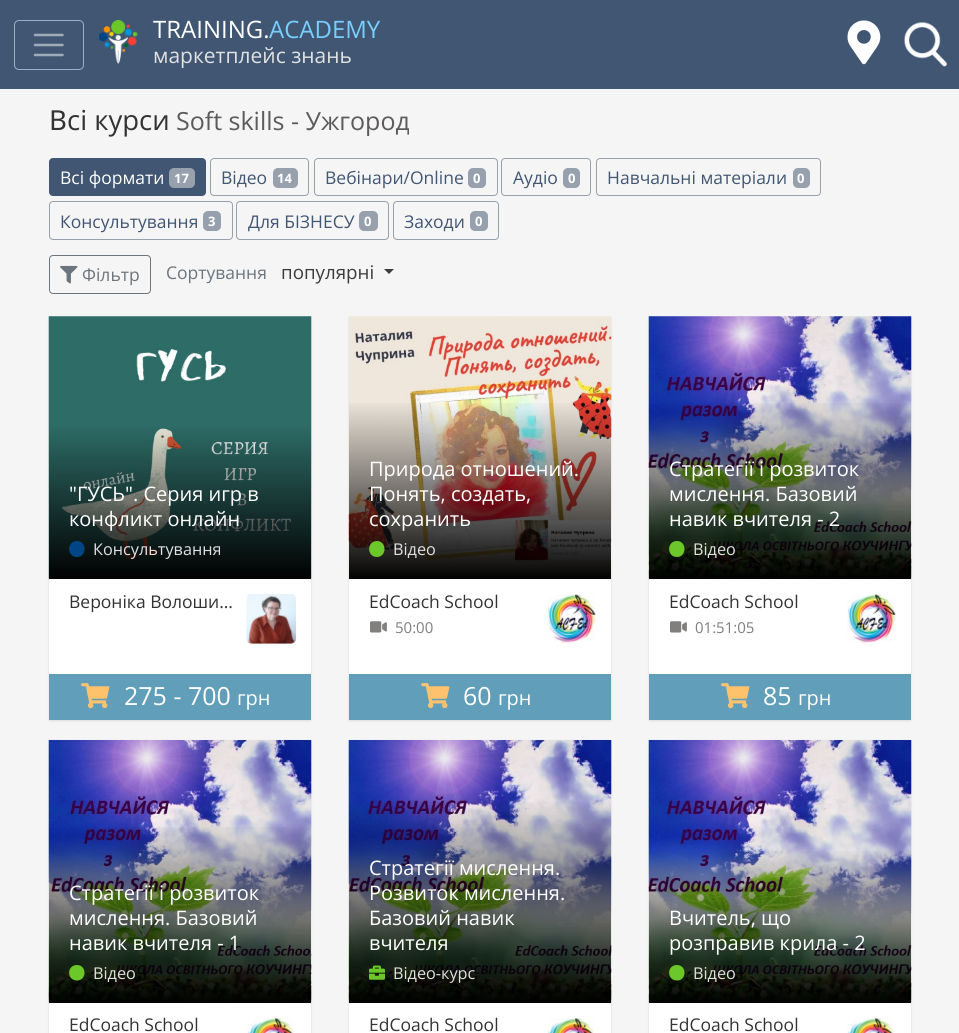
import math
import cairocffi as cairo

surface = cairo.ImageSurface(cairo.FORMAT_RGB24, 959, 1033)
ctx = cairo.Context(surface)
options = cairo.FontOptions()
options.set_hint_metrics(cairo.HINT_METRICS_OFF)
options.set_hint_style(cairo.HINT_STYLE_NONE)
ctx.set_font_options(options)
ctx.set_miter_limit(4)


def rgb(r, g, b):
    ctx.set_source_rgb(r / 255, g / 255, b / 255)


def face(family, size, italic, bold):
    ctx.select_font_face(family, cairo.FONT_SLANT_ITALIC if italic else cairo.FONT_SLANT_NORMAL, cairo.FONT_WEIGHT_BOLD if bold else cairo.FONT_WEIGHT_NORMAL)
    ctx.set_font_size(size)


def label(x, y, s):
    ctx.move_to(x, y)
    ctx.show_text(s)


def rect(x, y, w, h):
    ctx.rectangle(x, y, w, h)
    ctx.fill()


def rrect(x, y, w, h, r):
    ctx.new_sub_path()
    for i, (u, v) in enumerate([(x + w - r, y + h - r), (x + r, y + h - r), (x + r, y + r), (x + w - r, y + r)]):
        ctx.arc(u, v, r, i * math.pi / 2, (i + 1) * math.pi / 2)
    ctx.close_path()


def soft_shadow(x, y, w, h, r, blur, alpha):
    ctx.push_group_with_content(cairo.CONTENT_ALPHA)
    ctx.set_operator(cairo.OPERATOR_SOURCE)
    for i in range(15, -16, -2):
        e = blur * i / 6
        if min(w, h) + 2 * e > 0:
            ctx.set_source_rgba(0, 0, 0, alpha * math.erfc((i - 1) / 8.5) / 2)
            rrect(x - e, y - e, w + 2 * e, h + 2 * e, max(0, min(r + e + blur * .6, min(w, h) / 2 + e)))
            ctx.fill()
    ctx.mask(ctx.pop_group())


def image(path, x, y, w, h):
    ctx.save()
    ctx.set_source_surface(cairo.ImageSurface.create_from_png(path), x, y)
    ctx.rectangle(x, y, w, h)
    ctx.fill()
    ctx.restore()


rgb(245, 245, 245)
ctx.paint()
rgb(65, 86, 115)
rect(0, 0, 959, 89)
rrect(14.5, 20.5, 69, 49, 4.5)
rgb(152, 177, 198)
ctx.set_line_width(1)
ctx.stroke()
ctx.new_path()
ctx.move_to(35, 35)
ctx.line_to(62.5, 35)
ctx.move_to(35, 45)
ctx.line_to(62.5, 45)
ctx.move_to(35, 55)
ctx.line_to(62.5, 55)
rgb(160, 171, 185)
ctx.set_line_width(2.5)
ctx.set_line_cap(cairo.LINE_CAP_ROUND)
ctx.stroke()
image('image0.png', 98, 20, 40, 44)
face('Open Sans', 24, 0, 0)
rgb(255, 255, 255)
label(153, 38, 'TRAINING.')
rgb(119, 207, 254)
label(269, 38, 'ACADEMY')
face('Open Sans', 21, 0, 0)
rgb(225, 225, 225)
label(153, 63, 'маркетплейс знань')
image('image1.png', 847, 20, 34, 45)
image('image2.png', 903, 22, 44, 45)
face('Noto Sans', 27.5, 0, 0)
rgb(51, 51, 51)
label(49, 130, 'В')
face('Open Sans', 27.5, 0, 0)
label(67, 130, 'сі курси')
face('Open Sans', 25, 0, 0)
rgb(92, 90, 90)
label(176, 130, 'Soft skills - Ужгород')
rgb(65, 86, 115)
rrect(49.5, 158.5, 156, 37, 3.5)
ctx.fill_preserve()
ctx.set_line_width(1)
ctx.set_line_cap(cairo.LINE_CAP_BUTT)
ctx.stroke()
face('Open Sans', 17.5, 0, 0)
rgb(255, 255, 255)
label(60, 184, 'Всі формати')
rgb(151, 160, 173)
rrect(169, 168, 26, 20, 5)
ctx.fill()
face('Open Sans', 13, 0, 1)
rgb(255, 255, 255)
label(174, 183, '17')
rrect(210.5, 158.5, 98, 37, 3.5)
rgb(151, 160, 173)
ctx.stroke()
face('Open Sans', 17.5, 0, 0)
rgb(65, 86, 115)
label(221, 184, 'Відео')
rgb(151, 160, 173)
rrect(273, 168, 25, 20, 5)
ctx.fill()
face('Open Sans', 13, 0, 1)
rgb(255, 255, 255)
label(277, 183, '14')
rrect(314.5, 158.5, 183, 37, 3.5)
rgb(151, 160, 173)
ctx.stroke()
face('Open Sans', 17.5, 0, 0)
rgb(65, 86, 115)
label(325, 184, 'Вебінари/Online')
rgb(151, 160, 173)
rrect(468, 168, 18, 20, 5)
ctx.fill()
face('Open Sans', 13, 0, 1)
rgb(255, 255, 255)
label(473, 183, '0')
rrect(501.5, 158.5, 89, 37, 3.5)
rgb(151, 160, 173)
ctx.stroke()
face('Open Sans', 17.5, 0, 0)
rgb(65, 86, 115)
label(513, 184, 'Аудіо')
rgb(151, 160, 173)
rrect(563, 168, 17, 20, 5)
ctx.fill()
face('Open Sans', 13, 0, 1)
rgb(255, 255, 255)
label(568, 183, '0')
rrect(596.5, 158.5, 224, 37, 3.5)
rgb(151, 160, 173)
ctx.stroke()
face('Open Sans', 17.5, 0, 0)
rgb(65, 86, 115)
label(607, 184, 'Навчальні матеріали')
rgb(151, 160, 173)
rrect(793, 168, 17, 20, 5)
ctx.fill()
face('Open Sans', 13, 0, 1)
rgb(255, 255, 255)
label(797, 183, '0')
rrect(49.5, 201.5, 183, 38, 3.5)
rgb(151, 160, 173)
ctx.stroke()
face('Open Sans', 17.5, 0, 0)
rgb(65, 86, 115)
label(60, 228, 'Консультування')
rgb(151, 160, 173)
rrect(203, 211, 18, 20, 5)
ctx.fill()
face('Open Sans', 13, 0, 1)
rgb(255, 255, 255)
label(208, 226, '3')
rrect(236.5, 201.5, 152, 38, 3.5)
rgb(151, 160, 173)
ctx.stroke()
face('Open Sans', 17.5, 0, 0)
rgb(65, 86, 115)
label(248, 228, 'Для БІЗНЕСУ')
rgb(151, 160, 173)
rrect(359, 211, 19, 20, 5)
ctx.fill()
face('Open Sans', 13, 0, 1)
rgb(255, 255, 255)
label(364, 226, '0')
rrect(393.5, 201.5, 105, 38, 3.5)
rgb(151, 160, 173)
ctx.stroke()
face('Open Sans', 17.5, 0, 0)
rgb(65, 86, 115)
label(404, 228, 'Заходи')
rgb(151, 160, 173)
rrect(470, 211, 18, 20, 5)
ctx.fill()
face('Open Sans', 13, 0, 1)
rgb(255, 255, 255)
label(475, 226, '0')
rrect(49.5, 255.5, 101, 38, 3.5)
rgb(108, 117, 125)
ctx.stroke()
image('image3.png', 60, 265, 18, 19)
face('Open Sans', 17.5, 0, 0)
label(82, 281, 'Фільтр')
label(166, 279, 'Сортування')
face('Open Sans', 18.75, 0, 0)
rgb(60, 60, 60)
label(281, 279, 'популярні')
ctx.new_path()
ctx.move_to(384, 269)
ctx.line_to(394, 269)
ctx.line_to(389, 274)
ctx.close_path()
ctx.fill()
rgb(5, 5, 6)
soft_shadow(49, 318, 262, 403, 0, 1, 0.1)
image('image4.png', 48, 316, 264, 263)
gradient = cairo.LinearGradient(180, 424, 180, 581)
gradient.add_color_stop_rgba(0, 0, 0, 0, 0)
gradient.add_color_stop_rgba(1, 0, 0, 0, 1)
ctx.set_source(gradient)
rect(49, 427, 262, 152)
face('Open Sans', 20, 0, 0)
rgb(255, 255, 255)
label(69, 501, '"ГУСЬ". Серия игр в')
label(69, 526, 'конфликт онлайн')
rgb(0, 69, 134)
ctx.new_path()
ctx.move_to(77, 541)
ctx.curve_to(66.5, 541, 66.5, 557, 77, 557)
ctx.curve_to(87, 557, 87, 541, 77, 541)
ctx.close_path()
ctx.fill()
face('Open Sans', 16.25, 0, 0)
rgb(225, 225, 225)
label(93, 555, 'Консультування')
rgb(255, 255, 255)
rect(49, 579, 262, 95)
face('Open Sans', 17.5, 0, 0)
rgb(51, 51, 51)
label(69, 608, 'Вероніка Волоши…')
image('image5.png', 246, 594, 51, 50)
rgb(96, 158, 185)
rect(49, 674, 262, 46)
image('image6.png', 81, 683, 29, 26)
face('Open Sans', 25, 0, 0)
rgb(255, 255, 255)
label(124, 705, '275 - 700')
face('Open Sans', 20, 0, 0)
label(237, 705, 'грн')
rgb(5, 5, 6)
soft_shadow(349, 318, 262, 403, 0, 1, 0.1)
image('image7.png', 348, 316, 264, 263)
gradient = cairo.LinearGradient(480, 399, 480, 581)
gradient.add_color_stop_rgba(0, 0, 0, 0, 0)
gradient.add_color_stop_rgba(1, 0, 0, 0, 1)
ctx.set_source(gradient)
rect(349, 403, 262, 176)
rgb(255, 255, 255)
label(369, 476, 'Природа отношений.')
label(369, 501, 'Понять, создать,')
label(369, 526, 'сохранить')
rgb(108, 199, 42)
ctx.new_path()
ctx.move_to(377, 541)
ctx.curve_to(366.5, 541, 366.5, 557, 377, 557)
ctx.curve_to(387, 557, 387, 541, 377, 541)
ctx.close_path()
ctx.fill()
face('Open Sans', 16.25, 0, 0)
rgb(225, 225, 225)
label(393, 555, 'Відео')
rgb(255, 255, 255)
rect(349, 579, 262, 95)
face('Open Sans', 17.5, 0, 0)
rgb(51, 51, 51)
label(369, 608, 'EdCoach School')
image('image8.png', 370, 621, 17, 12)
face('Open Sans', 15, 0, 0)
rgb(129, 126, 126)
label(395, 633, '50:00')
image('image9.png', 546, 594, 50, 49)
rgb(96, 158, 185)
rect(349, 674, 262, 46)
image('image6.png', 421, 683, 29, 26)
face('Open Sans', 25, 0, 0)
rgb(255, 255, 255)
label(463, 705, '60')
face('Open Sans', 20, 0, 0)
label(498, 705, 'грн')
rgb(5, 5, 6)
soft_shadow(649, 318, 262, 403, 0, 1, 0.1)
image('image10.png', 648, 316, 264, 263)
gradient = cairo.LinearGradient(780, 399, 780, 581)
gradient.add_color_stop_rgba(0, 0, 0, 0, 0)
gradient.add_color_stop_rgba(1, 0, 0, 0, 1)
ctx.set_source(gradient)
rect(649, 403, 262, 176)
rgb(255, 255, 255)
label(669, 476, 'Стратегії і розвиток')
label(669, 501, 'мислення. Базовий')
label(669, 526, 'навик вчителя - 2')
rgb(108, 199, 42)
ctx.new_path()
ctx.move_to(677, 541)
ctx.curve_to(666.5, 541, 666.5, 557, 677, 557)
ctx.curve_to(687, 557, 687, 541, 677, 541)
ctx.close_path()
ctx.fill()
face('Open Sans', 16.25, 0, 0)
rgb(225, 225, 225)
label(693, 555, 'Відео')
rgb(255, 255, 255)
rect(649, 579, 262, 95)
face('Open Sans', 17.5, 0, 0)
rgb(51, 51, 51)
label(669, 608, 'EdCoach School')
image('image8.png', 670, 621, 17, 12)
face('Open Sans', 15, 0, 0)
rgb(129, 126, 126)
label(695, 633, '01:51:05')
image('image9.png', 846, 594, 50, 49)
rgb(96, 158, 185)
rect(649, 674, 262, 46)
image('image6.png', 721, 683, 29, 26)
face('Open Sans', 25, 0, 0)
rgb(255, 255, 255)
label(763, 705, '85')
face('Open Sans', 20, 0, 0)
label(798, 705, 'грн')
rgb(5, 5, 6)
soft_shadow(49, 741, 262, 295, 0, 1, 0.1)
image('image11.png', 48, 740, 264, 263)
gradient = cairo.LinearGradient(180, 823, 180, 1005)
gradient.add_color_stop_rgba(0, 0, 0, 0, 0)
gradient.add_color_stop_rgba(1, 0, 0, 0, 1)
ctx.set_source(gradient)
rect(49, 827, 262, 176)
rgb(255, 255, 255)
label(69, 900, 'Стратегії і розвиток')
label(69, 925, 'мислення. Базовий')
label(69, 950, 'навик вчителя - 1')
rgb(108, 199, 42)
ctx.new_path()
ctx.move_to(77, 965)
ctx.curve_to(66.5, 965, 66.5, 980.5, 77, 980.5)
ctx.curve_to(87, 980.5, 87, 965, 77, 965)
ctx.close_path()
ctx.fill()
face('Open Sans', 16.25, 0, 0)
rgb(225, 225, 225)
label(93, 979, 'Відео')
rgb(255, 255, 255)
rect(49, 1003, 262, 30)
face('Open Sans', 17.5, 0, 0)
rgb(51, 51, 51)
label(69, 1031, 'EdCoach School')
image('image12.png', 247, 1018, 47, 15)
rgb(5, 5, 6)
soft_shadow(349, 741, 262, 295, 0, 1, 0.1)
image('image13.png', 348, 740, 264, 263)
gradient = cairo.LinearGradient(480, 798, 480, 1005)
gradient.add_color_stop_rgba(0, 0, 0, 0, 0)
gradient.add_color_stop_rgba(1, 0, 0, 0, 1)
ctx.set_source(gradient)
rect(349, 802, 262, 201)
face('Open Sans', 20, 0, 0)
rgb(255, 255, 255)
label(369, 875, 'Стратегії мислення.')
label(369, 900, 'Розвиток мислення.')
label(369, 925, 'Базовий навик')
label(369, 950, 'вчителя')
image('image14.png', 369, 965, 16, 15)
face('Open Sans', 16.25, 0, 0)
rgb(225, 225, 225)
label(393, 979, 'Відео-курс')
rgb(255, 255, 255)
rect(349, 1003, 262, 30)
face('Open Sans', 17.5, 0, 0)
rgb(51, 51, 51)
label(369, 1031, 'EdCoach School')
image('image12.png', 547, 1018, 47, 15)
rgb(5, 5, 6)
soft_shadow(649, 741, 262, 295, 0, 1, 0.1)
image('image15.png', 648, 740, 264, 263)
gradient = cairo.LinearGradient(780, 848, 780, 1005)
gradient.add_color_stop_rgba(0, 0, 0, 0, 0)
gradient.add_color_stop_rgba(1, 0, 0, 0, 1)
ctx.set_source(gradient)
rect(649, 851, 262, 152)
face('Open Sans', 20, 0, 0)
rgb(255, 255, 255)
label(669, 925, 'Вчитель, що')
label(669, 950, 'розправив крила - 2')
rgb(108, 199, 42)
ctx.new_path()
ctx.move_to(677, 965)
ctx.curve_to(666.5, 965, 666.5, 980.5, 677, 980.5)
ctx.curve_to(687, 980.5, 687, 965, 677, 965)
ctx.close_path()
ctx.fill()
face('Open Sans', 16.25, 0, 0)
rgb(225, 225, 225)
label(693, 979, 'Відео')
rgb(255, 255, 255)
rect(649, 1003, 262, 30)
face('Open Sans', 17.5, 0, 0)
rgb(51, 51, 51)
label(669, 1031, 'EdCoach School')
image('image12.png', 847, 1018, 47, 15)
surface.write_to_png('render.png')
